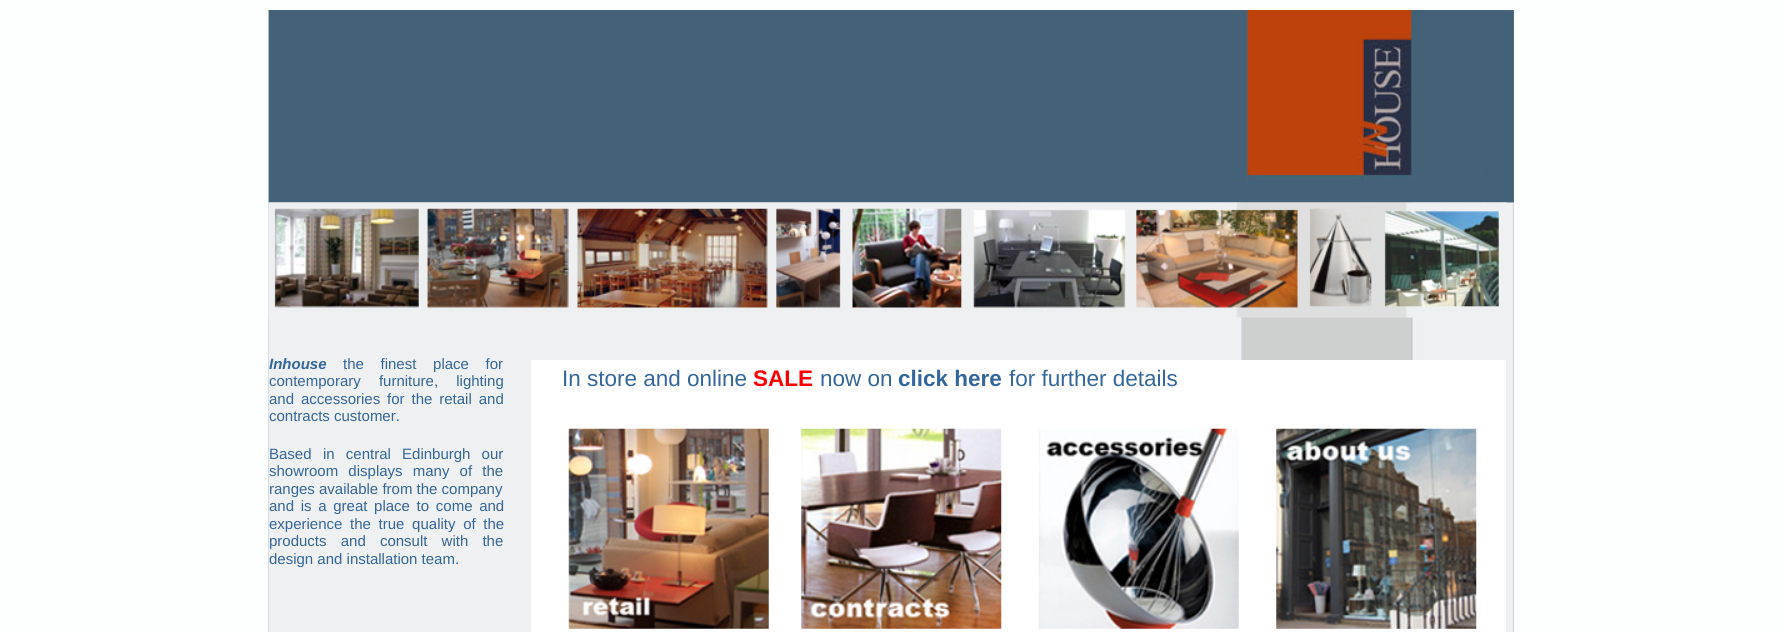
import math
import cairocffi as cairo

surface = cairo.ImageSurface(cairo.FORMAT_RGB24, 1782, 632)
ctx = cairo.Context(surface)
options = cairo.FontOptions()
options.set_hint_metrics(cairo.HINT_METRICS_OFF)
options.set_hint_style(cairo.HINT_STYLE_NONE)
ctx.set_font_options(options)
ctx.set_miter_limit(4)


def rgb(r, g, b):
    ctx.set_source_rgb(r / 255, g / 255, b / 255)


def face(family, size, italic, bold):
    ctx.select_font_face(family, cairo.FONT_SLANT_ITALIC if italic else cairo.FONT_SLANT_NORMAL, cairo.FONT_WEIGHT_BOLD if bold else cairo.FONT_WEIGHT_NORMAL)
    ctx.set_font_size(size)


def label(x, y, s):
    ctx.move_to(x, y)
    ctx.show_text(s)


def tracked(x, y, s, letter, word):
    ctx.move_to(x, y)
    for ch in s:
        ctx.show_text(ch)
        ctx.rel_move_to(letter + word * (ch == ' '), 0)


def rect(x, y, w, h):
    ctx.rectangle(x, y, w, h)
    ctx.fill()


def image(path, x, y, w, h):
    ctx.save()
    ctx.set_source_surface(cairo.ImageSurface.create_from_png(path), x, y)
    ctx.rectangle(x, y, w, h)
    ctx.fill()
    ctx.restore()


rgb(255, 255, 255)
ctx.paint()
image('image0.png', 0, 0, 1782, 632)
image('image1.png', 268, 10, 1246, 193)
image('image2.png', 268, 202, 1246, 430)
image('image3.png', 268, 202, 1239, 116)
face('Liberation Sans', 15, 1, 1)
rgb(51, 102, 153)
label(269, 369, 'Inhouse')
face('Liberation Sans', 15, 0, 0)
tracked(343, 369, 'the finest place for', 0, 12.5)
tracked(269, 386, 'contemporary furniture, lighting', 0, 14)
tracked(269, 404, 'and accessories for the retail and', 0, 2.75)
label(269, 421, 'contracts customer.')
label(269, 459, 'Based')
tracked(323, 459, 'in central Edinburgh our', 0, 7)
tracked(269, 476, 'showroom displays many of the', 0, 6)
label(269, 494, 'ranges')
label(319, 494, 'available from the company')
tracked(269, 511, 'and is a great place to come and', 0, 2.5)
tracked(269, 529, 'experience the true quality of the', 0, 3.5)
tracked(269, 546, 'products and consult with the', 0, 10)
label(269, 564, 'design and installation team.')
rgb(255, 255, 255)
rect(531, 360, 975, 272)
face('Liberation Sans', 22.5, 0, 0)
rgb(51, 102, 153)
label(562, 386, 'In store and online')
face('Liberation Sans', 22.5, 0, 1)
rgb(255, 0, 0)
label(753, 386, 'SALE')
face('Liberation Sans', 22.5, 0, 0)
rgb(51, 102, 153)
label(820, 386, 'now on')
face('Liberation Sans', 22.5, 0, 1)
label(898, 386, 'click here')
face('Liberation Sans', 22.5, 0, 0)
label(1009, 386, 'for further details')
image('image4.png', 568, 428, 201, 201)
image('image5.png', 801, 428, 201, 201)
image('image6.png', 1038, 428, 201, 201)
image('image7.png', 1276, 428, 201, 201)
surface.write_to_png('render.png')
